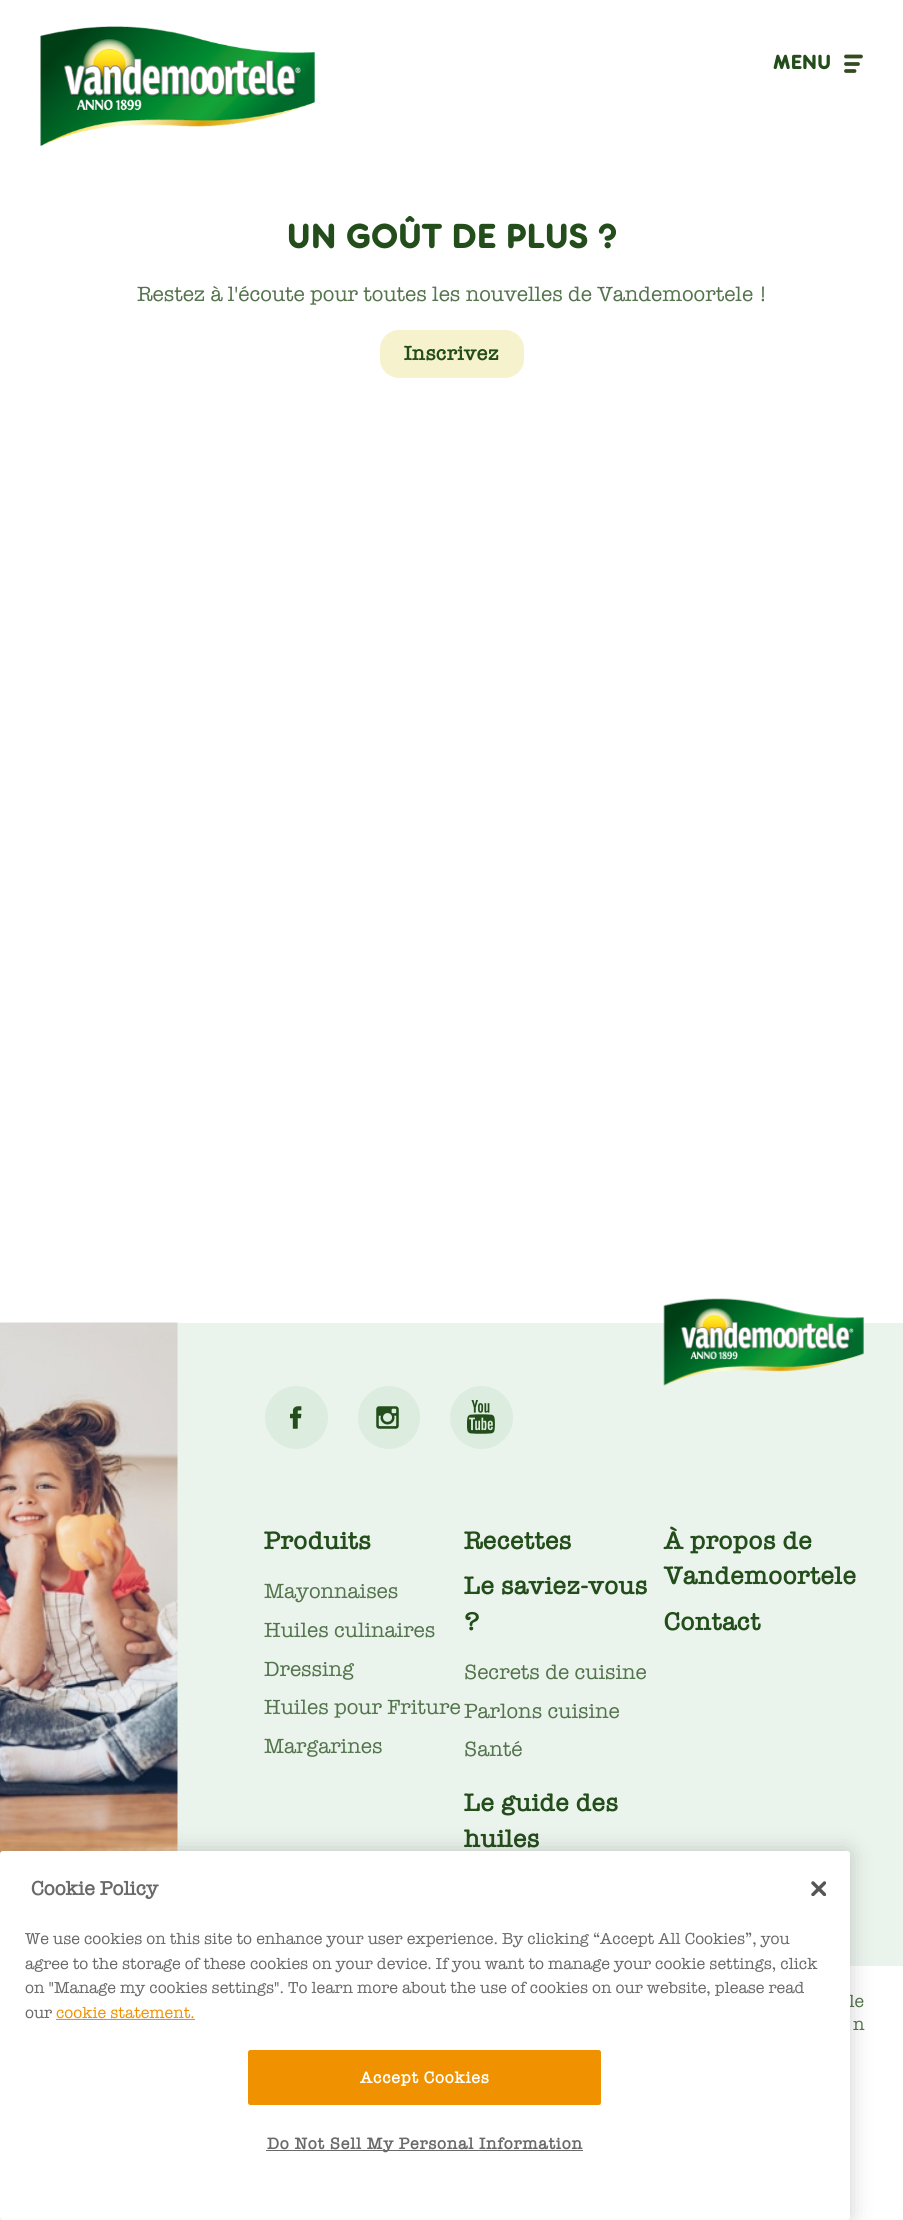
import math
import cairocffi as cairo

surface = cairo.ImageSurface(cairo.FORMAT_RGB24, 903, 2220)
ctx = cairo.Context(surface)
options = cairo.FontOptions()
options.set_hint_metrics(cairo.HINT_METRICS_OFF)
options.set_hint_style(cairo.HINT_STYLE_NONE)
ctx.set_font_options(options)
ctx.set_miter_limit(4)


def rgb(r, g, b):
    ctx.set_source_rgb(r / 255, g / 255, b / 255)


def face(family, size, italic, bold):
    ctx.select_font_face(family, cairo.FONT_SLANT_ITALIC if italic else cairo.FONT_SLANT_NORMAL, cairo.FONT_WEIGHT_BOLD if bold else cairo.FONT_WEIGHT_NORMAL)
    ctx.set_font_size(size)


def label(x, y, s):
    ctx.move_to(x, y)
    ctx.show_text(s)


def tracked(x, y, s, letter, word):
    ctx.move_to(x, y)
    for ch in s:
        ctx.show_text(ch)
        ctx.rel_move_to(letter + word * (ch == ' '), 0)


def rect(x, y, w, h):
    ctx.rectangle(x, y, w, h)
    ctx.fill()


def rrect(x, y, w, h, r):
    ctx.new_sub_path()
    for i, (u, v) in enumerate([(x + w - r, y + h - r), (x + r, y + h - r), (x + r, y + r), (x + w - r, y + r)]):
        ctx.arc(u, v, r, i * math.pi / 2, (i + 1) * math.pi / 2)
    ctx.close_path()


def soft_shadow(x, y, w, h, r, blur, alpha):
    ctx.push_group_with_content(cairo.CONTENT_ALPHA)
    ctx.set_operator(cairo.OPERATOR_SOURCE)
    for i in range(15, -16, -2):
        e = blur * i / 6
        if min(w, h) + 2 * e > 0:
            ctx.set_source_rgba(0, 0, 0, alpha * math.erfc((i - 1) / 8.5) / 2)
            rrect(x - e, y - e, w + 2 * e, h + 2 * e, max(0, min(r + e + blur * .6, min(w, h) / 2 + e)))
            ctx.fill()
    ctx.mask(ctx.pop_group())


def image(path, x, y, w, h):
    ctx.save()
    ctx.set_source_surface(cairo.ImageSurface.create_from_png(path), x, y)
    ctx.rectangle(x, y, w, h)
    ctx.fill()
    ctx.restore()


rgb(255, 255, 255)
ctx.paint()
image('image0.png', 40, 26, 275, 120)
face('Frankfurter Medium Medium', 21.25, 0, 0)
rgb(35, 77, 26)
label(773, 69, 'MENU')
ctx.new_path()
ctx.move_to(846, 56.5)
ctx.line_to(861, 56.5)
ctx.move_to(846, 64)
ctx.line_to(858, 64)
ctx.move_to(846, 71)
ctx.line_to(854.5, 71)
rgb(51, 76, 30)
ctx.set_line_width(3.8)
ctx.set_line_cap(cairo.LINE_CAP_ROUND)
ctx.stroke()
face('Frankfurter Medium Medium', 36.25, 0, 0)
rgb(35, 77, 26)
label(287, 248, 'UN GOÛT DE PLUS ?')
face('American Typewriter', 21.25, 0, 0)
rgb(83, 116, 76)
label(137, 301, 'Restez à l\'écoute pour toutes les nouvelles de Vandemoortele !')
rgb(246, 242, 206)
rrect(380, 330, 144, 48, 19)
ctx.fill()
face('American Typewriter SemiBold', 21.25, 0, 0)
rgb(35, 77, 26)
label(404, 360, 'Inscrivez')
rgb(235, 244, 236)
rect(177, 1323, 726, 643)
image('image1.png', 0, 1322, 178, 532)
image('image2.png', 663, 1298, 201, 88)
rgb(220, 236, 222)
ctx.arc(296.5, 1417.5, 31.5, 0, 2 * math.pi)
ctx.fill()
image('image3.png', 290, 1406, 12, 23)
rrect(358, 1386, 62, 63, 31)
ctx.fill()
image('image4.png', 376, 1406, 23, 23)
ctx.arc(481.5, 1417.5, 31.5, 0, 2 * math.pi)
ctx.fill()
image('image5.png', 467, 1400, 28, 34)
face('American Typewriter SemiBold', 26.25, 0, 0)
rgb(35, 77, 26)
label(264, 1549, 'Produits')
face('American Typewriter', 21.25, 0, 0)
rgb(83, 116, 76)
label(264, 1598, 'Mayonnaises')
label(264, 1637, 'Huiles culinaires')
label(264, 1676, 'Dressing')
label(264, 1714, 'Huiles pour Friture')
label(264, 1753, 'Margarines')
face('American Typewriter SemiBold', 26.25, 0, 0)
rgb(35, 77, 26)
label(464, 1549, 'Recettes')
label(464, 1594, 'Le saviez-vous')
label(464, 1630, '?')
face('American Typewriter', 21.25, 0, 0)
rgb(83, 116, 76)
label(464, 1679, 'Secrets de cuisine')
label(464, 1718, 'Parlons cuisine')
label(464, 1756, 'Santé')
face('American Typewriter SemiBold', 26.25, 0, 0)
rgb(35, 77, 26)
label(464, 1811, 'Le guide des')
label(464, 1847, 'huiles')
label(664, 1549, 'À propos de')
label(664, 1584, 'Vandemoortele')
label(664, 1630, 'Contact')
face('American Typewriter', 18, 0, 0)
rgb(83, 116, 76)
label(849, 2007, 'le')
label(853, 2030, 'n')
rgb(0, 0, 0)
soft_shadow(0, 1851, 850, 369, 3, 11, 0.2)
rgb(255, 255, 255)
rrect(0, 1851, 850, 369, 3)
ctx.fill()
face('American Typewriter', 20, 0, 1)
rgb(105, 105, 105)
label(31, 1895, 'Cookie Policy')
face('American Typewriter', 16.4, 0, 0)
label(25, 1944, 'We use cookies on this site to enhance your user experience.')
label(502, 1944, 'By clicking “Accept All Cookies”, you')
label(25, 1969, 'agree to the storage of these cookies on your device. If you want to manage your cookie settings, click')
label(25, 1993, 'on "Manage my cookies settings". To learn more about the use of cookies on our website, please read')
label(25, 2018, 'our')
rgb(240, 146, 0)
label(56, 2018, 'cookie statement.')
rect(56, 2019, 139, 1)
image('image6.png', 811, 1881, 15, 15)
rrect(248.5, 2050.5, 352, 54, 2)
ctx.fill_preserve()
ctx.set_line_width(1)
ctx.set_line_cap(cairo.LINE_CAP_BUTT)
ctx.stroke()
face('American Typewriter', 16.4, 0, 1)
rgb(255, 255, 255)
tracked(360, 2083, 'Accept Cookies', 0.8, 0)
rgb(105, 105, 105)
rect(266, 2150, 317, 1)
tracked(267, 2149, 'Do Not Sell My Personal Information', 0.8, 0)
surface.write_to_png('render.png')
